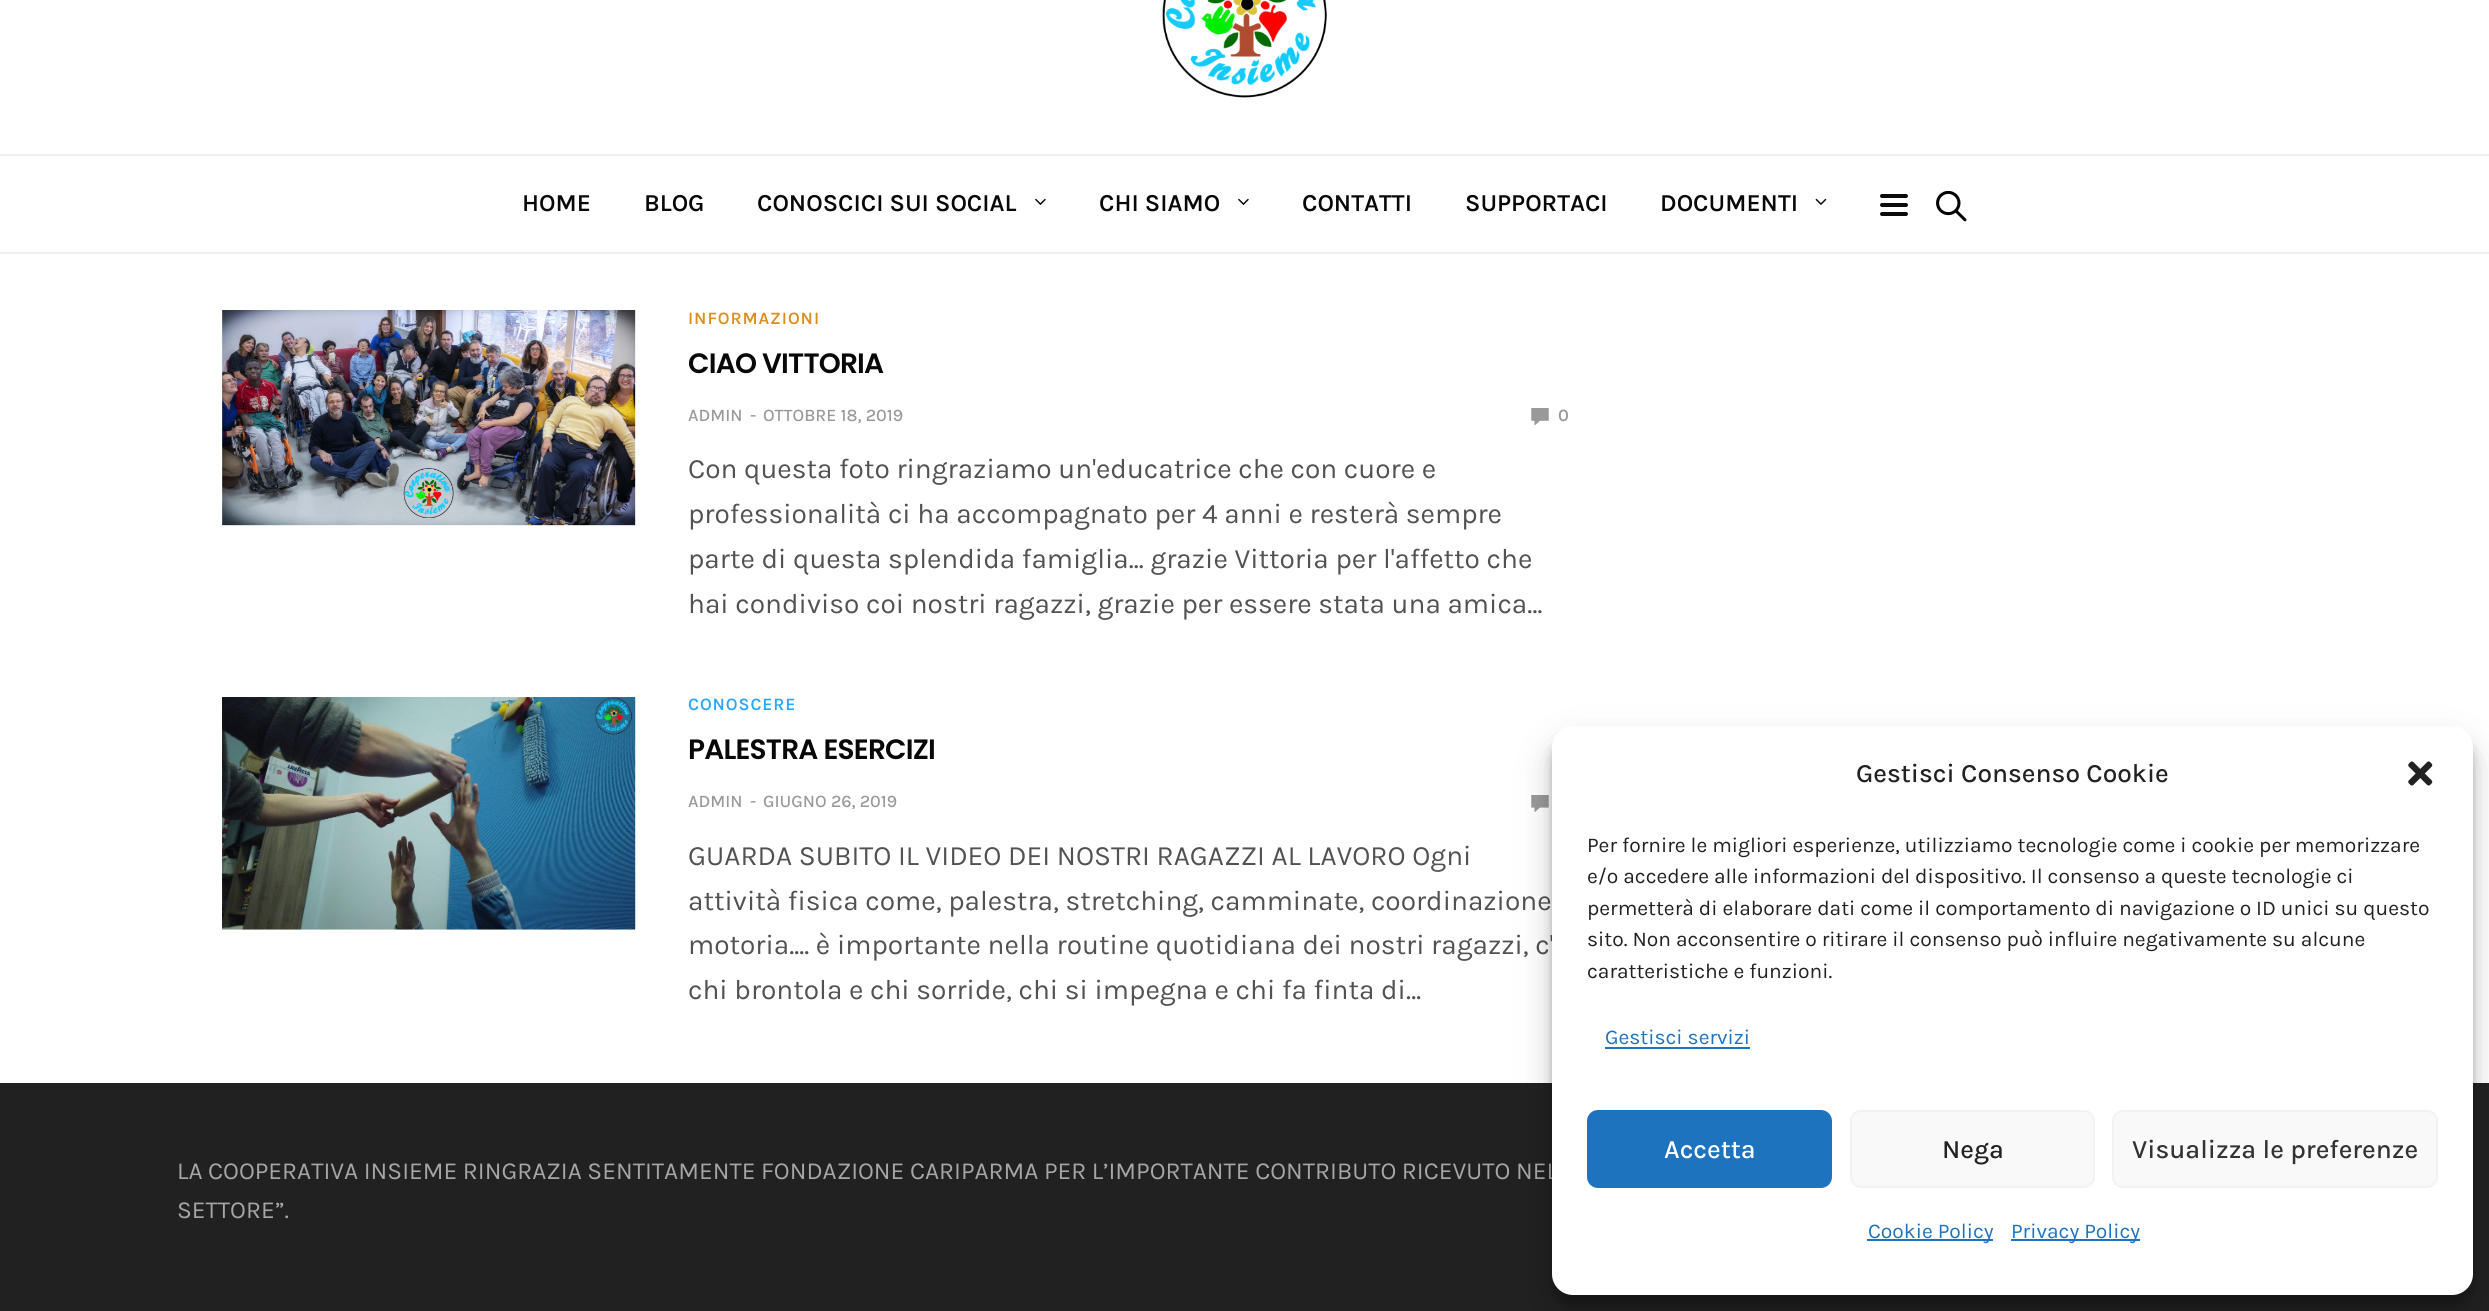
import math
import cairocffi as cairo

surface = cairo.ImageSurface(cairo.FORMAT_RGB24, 2489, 1311)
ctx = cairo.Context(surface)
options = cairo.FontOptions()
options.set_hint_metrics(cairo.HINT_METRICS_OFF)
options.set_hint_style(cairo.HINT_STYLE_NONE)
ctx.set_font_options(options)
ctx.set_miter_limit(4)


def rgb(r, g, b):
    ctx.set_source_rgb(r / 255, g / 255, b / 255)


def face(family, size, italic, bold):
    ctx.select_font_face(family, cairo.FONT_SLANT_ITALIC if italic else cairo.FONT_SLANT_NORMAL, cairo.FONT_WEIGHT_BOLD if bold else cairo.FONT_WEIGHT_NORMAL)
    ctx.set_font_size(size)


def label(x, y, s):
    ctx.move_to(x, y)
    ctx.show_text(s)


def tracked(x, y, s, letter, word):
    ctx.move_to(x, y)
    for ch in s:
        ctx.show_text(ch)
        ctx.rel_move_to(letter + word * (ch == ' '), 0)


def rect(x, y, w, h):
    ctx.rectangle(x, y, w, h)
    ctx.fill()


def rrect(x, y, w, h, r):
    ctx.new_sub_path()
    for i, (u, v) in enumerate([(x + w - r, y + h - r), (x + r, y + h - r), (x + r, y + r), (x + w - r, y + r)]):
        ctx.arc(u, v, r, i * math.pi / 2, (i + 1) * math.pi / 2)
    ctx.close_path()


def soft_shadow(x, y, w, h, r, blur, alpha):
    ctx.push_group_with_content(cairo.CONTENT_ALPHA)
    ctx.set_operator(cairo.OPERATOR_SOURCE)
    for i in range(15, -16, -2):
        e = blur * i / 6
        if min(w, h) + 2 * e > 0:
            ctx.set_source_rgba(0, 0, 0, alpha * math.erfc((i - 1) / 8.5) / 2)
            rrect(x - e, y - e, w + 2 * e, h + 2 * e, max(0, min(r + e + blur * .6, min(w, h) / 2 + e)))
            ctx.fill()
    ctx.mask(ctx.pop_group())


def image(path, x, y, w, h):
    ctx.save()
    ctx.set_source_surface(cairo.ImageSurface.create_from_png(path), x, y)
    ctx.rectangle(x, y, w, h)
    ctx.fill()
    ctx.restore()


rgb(255, 255, 255)
ctx.paint()
image('image0.png', 1162, 0, 165, 98)
rgb(240, 240, 240)
rect(0, 154, 2489, 2)
rect(0, 252, 2489, 2)
face('Karla SemiBold', 24.5, 0, 0)
rgb(8, 8, 8)
label(522, 211, 'HOME')
label(644, 211, 'BLOG')
label(757, 211, 'CONOSCICI SUI SOCIAL')
image('image1.png', 1035, 198, 11, 7)
label(1099, 211, 'CHI SIAMO')
image('image1.png', 1238, 198, 11, 7)
label(1302, 211, 'CONTATTI')
label(1465, 211, 'SUPPORTACI')
label(1660, 211, 'DOCUMENTI')
image('image2.png', 1815, 198, 12, 7)
rgb(10, 10, 10)
rrect(1880, 194, 28, 4, 2)
ctx.fill()
rrect(1880, 203, 28, 4, 2)
ctx.fill()
rrect(1880, 212, 28, 4, 2)
ctx.fill()
image('image3.png', 1936, 191, 31, 31)
image('image4.png', 222, 310, 414, 216)
face('Karla SemiBold', 17.5, 0, 0)
rgb(219, 142, 28)
tracked(688, 324, 'INFORMAZIONI', 0.9, 0)
face('Poppins SemiBold', 28, 0, 0)
rgb(8, 8, 8)
tracked(688, 373, 'CIAO VITTORIA', -0.8, 0)
face('Karla Medium', 17.5, 0, 0)
rgb(153, 153, 153)
label(688, 421, 'ADMIN')
label(750, 421, '-')
label(763, 421, 'OTTOBRE 18, 2019')
image('image5.png', 1531, 408, 18, 17)
face('Karla SemiBold', 17.5, 0, 0)
label(1558, 421, '0')
face('Karla', 28, 0, 0)
rgb(82, 82, 82)
label(688, 478, 'Con questa foto ringraziamo un\'educatrice che con cuore e')
label(688, 523, 'professionalità ci ha accompagnato per 4 anni e resterà sempre')
label(688, 568, 'parte di questa splendida famiglia... grazie Vittoria per l\'affetto che')
label(688, 613, 'hai condiviso coi nostri ragazzi, grazie per essere stata una amica…')
image('image6.png', 222, 697, 414, 233)
face('Karla SemiBold', 17.5, 0, 0)
rgb(40, 167, 252)
tracked(688, 710, 'CONOSCERE', 0.9, 0)
face('Poppins SemiBold', 28, 0, 0)
rgb(8, 8, 8)
tracked(688, 759, 'PALESTRA ESERCIZI', -0.8, 0)
face('Karla Medium', 17.5, 0, 0)
rgb(153, 153, 153)
label(688, 807, 'ADMIN')
label(750, 807, '-')
label(763, 807, 'GIUGNO 26, 2019')
image('image7.png', 1531, 795, 18, 17)
face('Karla', 28, 0, 0)
rgb(82, 82, 82)
label(688, 865, 'GUARDA SUBITO IL VIDEO DEI NOSTRI RAGAZZI AL LAVORO Ogni')
label(688, 910, 'attività fisica come, palestra, stretching, camminate, coordinazione')
label(688, 954, 'motoria.... è importante nella routine quotidiana dei nostri ragazzi, c\'')
label(688, 999, 'chi brontola e chi sorride, chi si impegna e chi fa finta di…')
rgb(33, 33, 33)
rect(0, 1083, 2489, 228)
face('Karla', 24.5, 0, 0)
rgb(166, 166, 166)
tracked(177, 1179, 'LA COOPERATIVA INSIEME RINGRAZIA SENTITAMENTE FONDAZIONE CARIPARMA PER L’IMPORTANTE CONTRIBUTO RICEVUTO NEL', 0, -0.25)
label(177, 1218, 'SETTORE”.')
rgb(0, 0, 0)
soft_shadow(1552, 737, 921, 569, 21, 5, 0.23)
soft_shadow(1552, 744, 921, 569, 21, 17.5, 0.19)
rgb(255, 255, 255)
rrect(1552, 726, 921, 569, 21)
ctx.fill()
face('Karla Medium', 26.25, 0, 0)
rgb(34, 34, 34)
label(1856, 782, 'Gestisci Consenso Cookie')
image('image8.png', 2408, 761, 25, 25)
face('Karla', 21, 0, 0)
label(1587, 852, 'Per fornire le migliori esperienze, utilizziamo tecnologie come i cookie per memorizzare')
label(1587, 883, 'e/o accedere alle informazioni del dispositivo. Il consenso a queste tecnologie ci')
label(1587, 915, 'permetterà di elaborare dati come il comportamento di navigazione o ID unici su questo')
label(1587, 946, 'sito. Non acconsentire o ritirare il consenso può influire negativamente su alcune')
label(1587, 978, 'caratteristiche e funzioni.')
rgb(30, 115, 190)
label(1605, 1044, 'Gestisci servizi')
rect(1605, 1047, 145, 2)
rrect(1588, 1111, 243, 76, 10)
ctx.fill_preserve()
ctx.stroke()
face('Karla Medium', 26.25, 0, 0)
rgb(255, 255, 255)
label(1664, 1158, 'Accetta')
rgb(249, 249, 249)
rrect(1851, 1111, 243, 76, 10)
ctx.fill_preserve()
rgb(242, 242, 242)
ctx.stroke()
rgb(34, 34, 34)
label(1942, 1158, 'Nega')
rgb(249, 249, 249)
rrect(2113, 1111, 324, 76, 10)
ctx.fill_preserve()
rgb(242, 242, 242)
ctx.stroke()
rgb(51, 51, 51)
label(2132, 1158, 'Visualizza le preferenze')
rgb(30, 115, 190)
rect(1867, 1239, 126, 2)
face('Karla', 21, 0, 0)
label(1868, 1238, 'Cookie Policy')
rect(2011, 1239, 129, 2)
label(2011, 1238, 'Privacy Policy')
surface.write_to_png('render.png')
